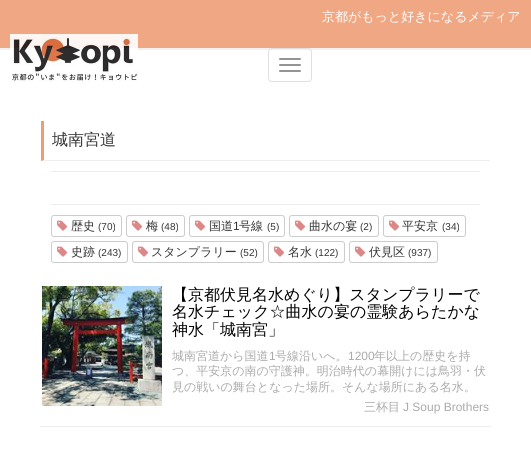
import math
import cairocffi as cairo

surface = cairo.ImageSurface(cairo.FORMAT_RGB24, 531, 463)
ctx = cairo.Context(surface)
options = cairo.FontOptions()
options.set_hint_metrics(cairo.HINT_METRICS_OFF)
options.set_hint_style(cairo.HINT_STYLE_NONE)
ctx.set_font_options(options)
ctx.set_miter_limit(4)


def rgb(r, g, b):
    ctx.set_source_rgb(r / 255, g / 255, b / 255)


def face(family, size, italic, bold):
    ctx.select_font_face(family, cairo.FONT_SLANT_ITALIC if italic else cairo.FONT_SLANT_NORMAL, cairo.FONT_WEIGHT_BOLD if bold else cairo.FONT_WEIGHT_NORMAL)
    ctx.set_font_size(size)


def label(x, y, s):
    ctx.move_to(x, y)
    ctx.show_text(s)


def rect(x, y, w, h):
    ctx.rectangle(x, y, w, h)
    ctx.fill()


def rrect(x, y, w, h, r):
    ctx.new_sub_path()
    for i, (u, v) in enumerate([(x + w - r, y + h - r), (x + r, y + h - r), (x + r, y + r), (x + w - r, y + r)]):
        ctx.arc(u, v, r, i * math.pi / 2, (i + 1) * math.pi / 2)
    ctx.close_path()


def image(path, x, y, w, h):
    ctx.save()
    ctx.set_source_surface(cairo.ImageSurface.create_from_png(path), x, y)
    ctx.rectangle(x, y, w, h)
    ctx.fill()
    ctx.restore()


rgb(255, 255, 255)
ctx.paint()
rgb(239, 167, 132)
rect(0, 0, 531, 48)
rgb(240, 240, 240)
rect(0, 48, 531, 2)
face('WenQuanYi Zen Hei Medium', 13, 0, 0)
rgb(255, 255, 255)
label(322, 21, '京都がもっと好きになるメディア')
image('image0.png', 10, 34, 128, 48)
rrect(268.5, 48.5, 43, 33, 3.5)
rgb(224, 224, 224)
ctx.set_line_width(1)
ctx.stroke()
rgb(148, 148, 148)
rrect(279, 58, 22, 2, 1)
ctx.fill()
rrect(279, 64, 22, 2, 1)
ctx.fill()
rrect(279, 70, 22, 2, 1)
ctx.fill()
rgb(238, 238, 238)
ctx.new_path()
ctx.move_to(490, 161)
ctx.line_to(41, 161)
ctx.line_to(44, 160)
ctx.line_to(490, 160)
ctx.close_path()
ctx.fill()
rgb(237, 157, 118)
ctx.new_path()
ctx.move_to(41, 161)
ctx.line_to(41, 121)
ctx.line_to(44, 121)
ctx.line_to(44, 160)
ctx.close_path()
ctx.fill()
face('WenQuanYi Zen Hei Medium', 16, 0, 0)
rgb(51, 51, 51)
label(52, 145, '城南宮道')
rgb(238, 238, 238)
rect(51, 171, 429, 1)
rect(51, 204, 429, 1)
rrect(51.5, 215.5, 70, 21, 2.5)
rgb(204, 204, 204)
ctx.stroke()
image('image1.png', 57, 220, 11, 11)
face('WenQuanYi Zen Hei Medium', 12, 0, 0)
rgb(51, 51, 51)
label(71, 230, '歴史')
face('Liberation Sans', 10, 0, 0)
label(98, 230, '(70)')
rrect(126.5, 215.5, 58, 21, 2.5)
rgb(204, 204, 204)
ctx.stroke()
image('image1.png', 132, 220, 11, 11)
face('WenQuanYi Zen Hei Medium', 12, 0, 0)
rgb(51, 51, 51)
label(146, 230, '梅')
face('Liberation Sans', 10, 0, 0)
label(161, 230, '(48)')
rrect(189.5, 215.5, 95, 21, 2.5)
rgb(204, 204, 204)
ctx.stroke()
image('image1.png', 195, 220, 11, 11)
face('WenQuanYi Zen Hei Medium', 12, 0, 0)
rgb(51, 51, 51)
label(209, 230, '国道')
face('Liberation Sans', 12, 0, 0)
label(233, 230, '1')
face('WenQuanYi Zen Hei Medium', 12, 0, 0)
label(239, 230, '号線')
face('Liberation Sans', 10, 0, 0)
label(267, 230, '(5)')
rrect(289.5, 215.5, 89, 21, 2.5)
rgb(204, 204, 204)
ctx.stroke()
image('image1.png', 295, 220, 11, 11)
face('WenQuanYi Zen Hei Medium', 12, 0, 0)
rgb(51, 51, 51)
label(309, 230, '曲水の宴')
face('Liberation Sans', 10, 0, 0)
label(360, 230, '(2)')
rrect(383.5, 215.5, 82, 21, 2.5)
rgb(204, 204, 204)
ctx.stroke()
image('image1.png', 389, 220, 11, 11)
face('WenQuanYi Zen Hei Medium', 12, 0, 0)
rgb(51, 51, 51)
label(402, 230, '平安京')
face('Liberation Sans', 10, 0, 0)
label(442, 230, '(34)')
rrect(51.5, 241.5, 76, 21, 2.5)
rgb(204, 204, 204)
ctx.stroke()
image('image1.png', 57, 246, 11, 11)
face('WenQuanYi Zen Hei Medium', 12, 0, 0)
rgb(51, 51, 51)
label(71, 256, '史跡')
face('Liberation Sans', 10, 0, 0)
label(98, 256, '(243)')
rrect(132.5, 241.5, 131, 21, 2.5)
rgb(204, 204, 204)
ctx.stroke()
image('image1.png', 138, 246, 11, 11)
face('WenQuanYi Zen Hei Medium', 12, 0, 0)
rgb(51, 51, 51)
label(151, 256, 'スタンプラリー')
face('Liberation Sans', 10, 0, 0)
label(240, 256, '(52)')
rrect(268.5, 241.5, 76, 21, 2.5)
rgb(204, 204, 204)
ctx.stroke()
image('image1.png', 274, 246, 11, 11)
face('WenQuanYi Zen Hei Medium', 12, 0, 0)
rgb(51, 51, 51)
label(288, 256, '名水')
face('Liberation Sans', 10, 0, 0)
label(315, 256, '(122)')
rrect(349.5, 241.5, 88, 21, 2.5)
rgb(204, 204, 204)
ctx.stroke()
image('image1.png', 355, 246, 11, 11)
face('WenQuanYi Zen Hei Medium', 12, 0, 0)
rgb(51, 51, 51)
label(369, 256, '伏見区')
face('Liberation Sans', 10, 0, 0)
label(408, 256, '(937)')
rgb(238, 238, 238)
rect(40, 426, 451, 1)
image('image2.png', 42, 286, 120, 120)
face('WenQuanYi Zen Hei Medium', 16, 0, 0)
rgb(0, 0, 0)
label(172, 300, '【京都伏見名水めぐり】スタンプラリーで')
label(172, 317, '名水チェック☆曲水の宴の霊験あらたかな')
label(172, 335, '神水「城南宮」')
face('WenQuanYi Zen Hei Medium', 12, 0, 0)
rgb(170, 170, 170)
label(172, 360, '城南宮道から国道')
face('Liberation Sans', 12, 0, 0)
label(269, 360, '1')
face('WenQuanYi Zen Hei Medium', 12, 0, 0)
label(275, 360, '号線沿いへ。')
face('Liberation Sans', 12, 0, 0)
label(348, 360, '1200')
face('WenQuanYi Zen Hei Medium', 12, 0, 0)
label(374, 360, '年以上の歴史を持')
label(172, 375, 'つ、平安京の南の守護神。明治時代の幕開けには鳥羽・伏')
label(172, 391, '見の戦いの舞台となった場所。そんな場所にある名水。')
label(364, 411, '三杯目')
face('Liberation Sans', 12, 0, 0)
label(403, 411, 'J Soup Brothers')
surface.write_to_png('render.png')
